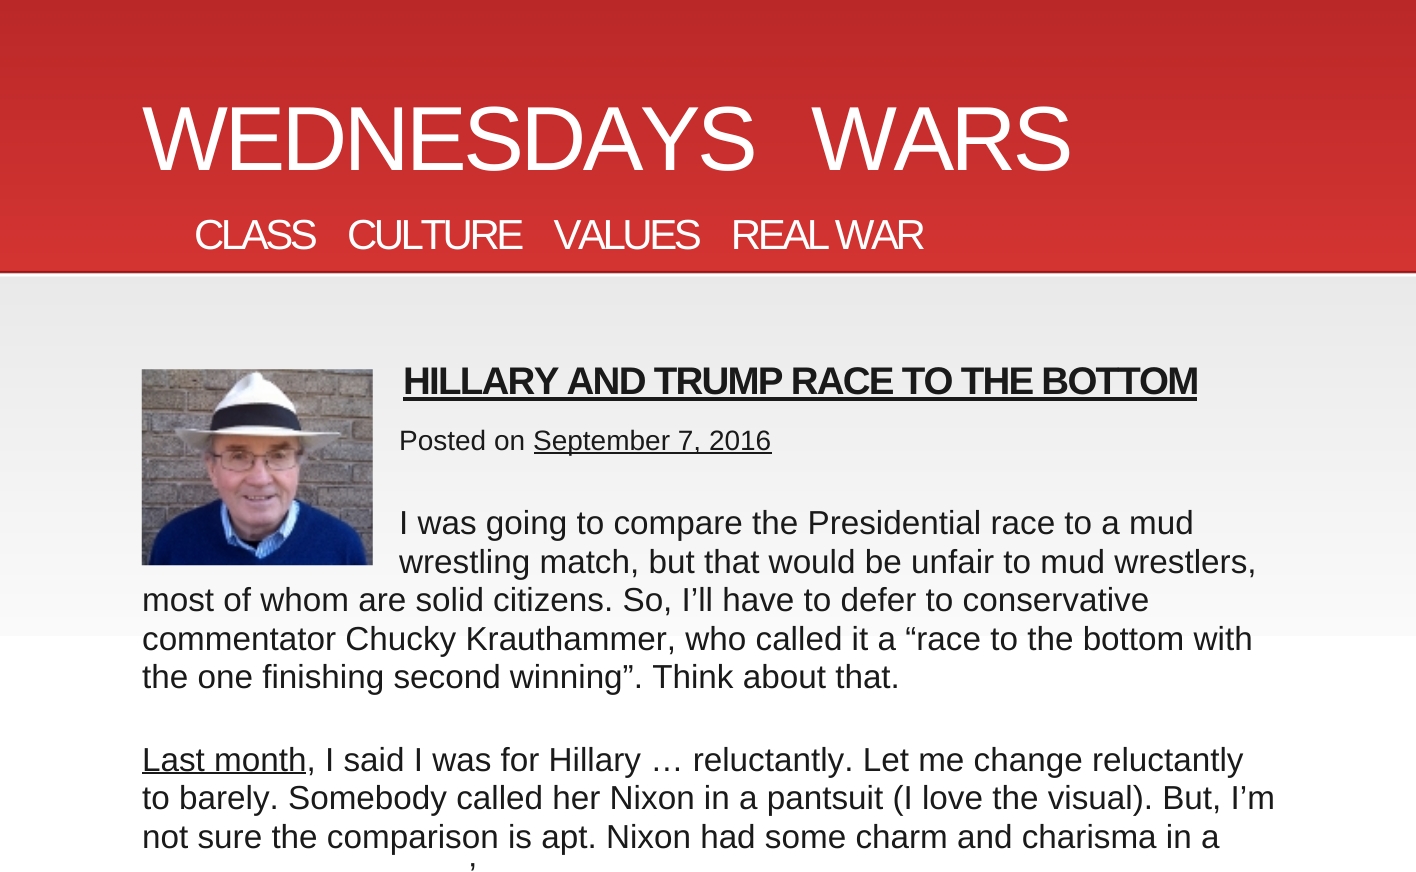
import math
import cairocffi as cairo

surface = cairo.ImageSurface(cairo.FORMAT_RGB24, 1416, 872)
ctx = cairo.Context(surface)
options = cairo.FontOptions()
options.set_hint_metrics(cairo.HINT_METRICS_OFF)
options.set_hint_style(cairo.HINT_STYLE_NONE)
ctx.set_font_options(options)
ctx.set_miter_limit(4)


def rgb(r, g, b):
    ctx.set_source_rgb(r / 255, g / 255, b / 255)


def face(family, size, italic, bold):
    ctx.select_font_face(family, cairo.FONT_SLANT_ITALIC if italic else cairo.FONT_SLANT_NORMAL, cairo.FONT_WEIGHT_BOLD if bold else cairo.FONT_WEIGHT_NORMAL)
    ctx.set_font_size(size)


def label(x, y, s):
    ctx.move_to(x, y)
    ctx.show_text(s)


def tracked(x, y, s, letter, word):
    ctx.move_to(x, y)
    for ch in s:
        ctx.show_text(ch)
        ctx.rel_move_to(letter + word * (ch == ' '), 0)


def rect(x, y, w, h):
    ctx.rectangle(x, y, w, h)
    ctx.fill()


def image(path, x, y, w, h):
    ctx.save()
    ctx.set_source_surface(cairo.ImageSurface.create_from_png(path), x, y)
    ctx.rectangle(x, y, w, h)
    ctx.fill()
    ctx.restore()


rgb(255, 255, 255)
ctx.paint()
image('image0.png', 0, 0, 1416, 636)
face('Liberation Sans', 91, 0, 0)
rgb(255, 255, 255)
tracked(142, 170, 'WEDNESDAYS WARS', -3.5, 35)
face('Liberation Sans', 42, 0, 0)
tracked(194, 249, 'CLASS    CULTURE    VALUES    REAL WAR', -3.5, 0)
image('image1.png', 141, 369, 232, 197)
face('Liberation Sans', 38.5, 0, 1)
rgb(26, 26, 26)
tracked(403, 394, 'HILLARY AND TRUMP RACE TO THE BOTTOM', -1.75, 0)
rect(403, 397, 794, 4)
face('Liberation Sans', 28, 0, 0)
label(399, 450, 'Posted on')
rect(534, 452, 238, 2)
label(533, 450, 'September 7, 2016')
face('Liberation Sans', 33.25, 0, 0)
label(399, 534, 'I was going to compare the Presidential race to a mud')
label(399, 573, 'wrestling match, but that would be unfair to mud wrestlers,')
label(142, 611, 'most of whom are solid citizens. So, I’ll have to defer to conservative')
label(142, 650, 'commentator Chucky Krauthammer, who called it a “race to the bottom with')
label(142, 688, 'the one finishing second winning”. Think about that.')
rect(142, 772, 164, 2)
label(142, 771, 'Last month, I said I was for Hillary … reluctantly. Let me change reluctantly')
label(142, 809, 'to barely. Somebody called her Nixon in a pantsuit (I love the visual). But, I’m')
label(142, 848, 'not sure the comparison is apt. Nixon had some charm and charisma in a')
label(469, 886, '’')
surface.write_to_png('render.png')
